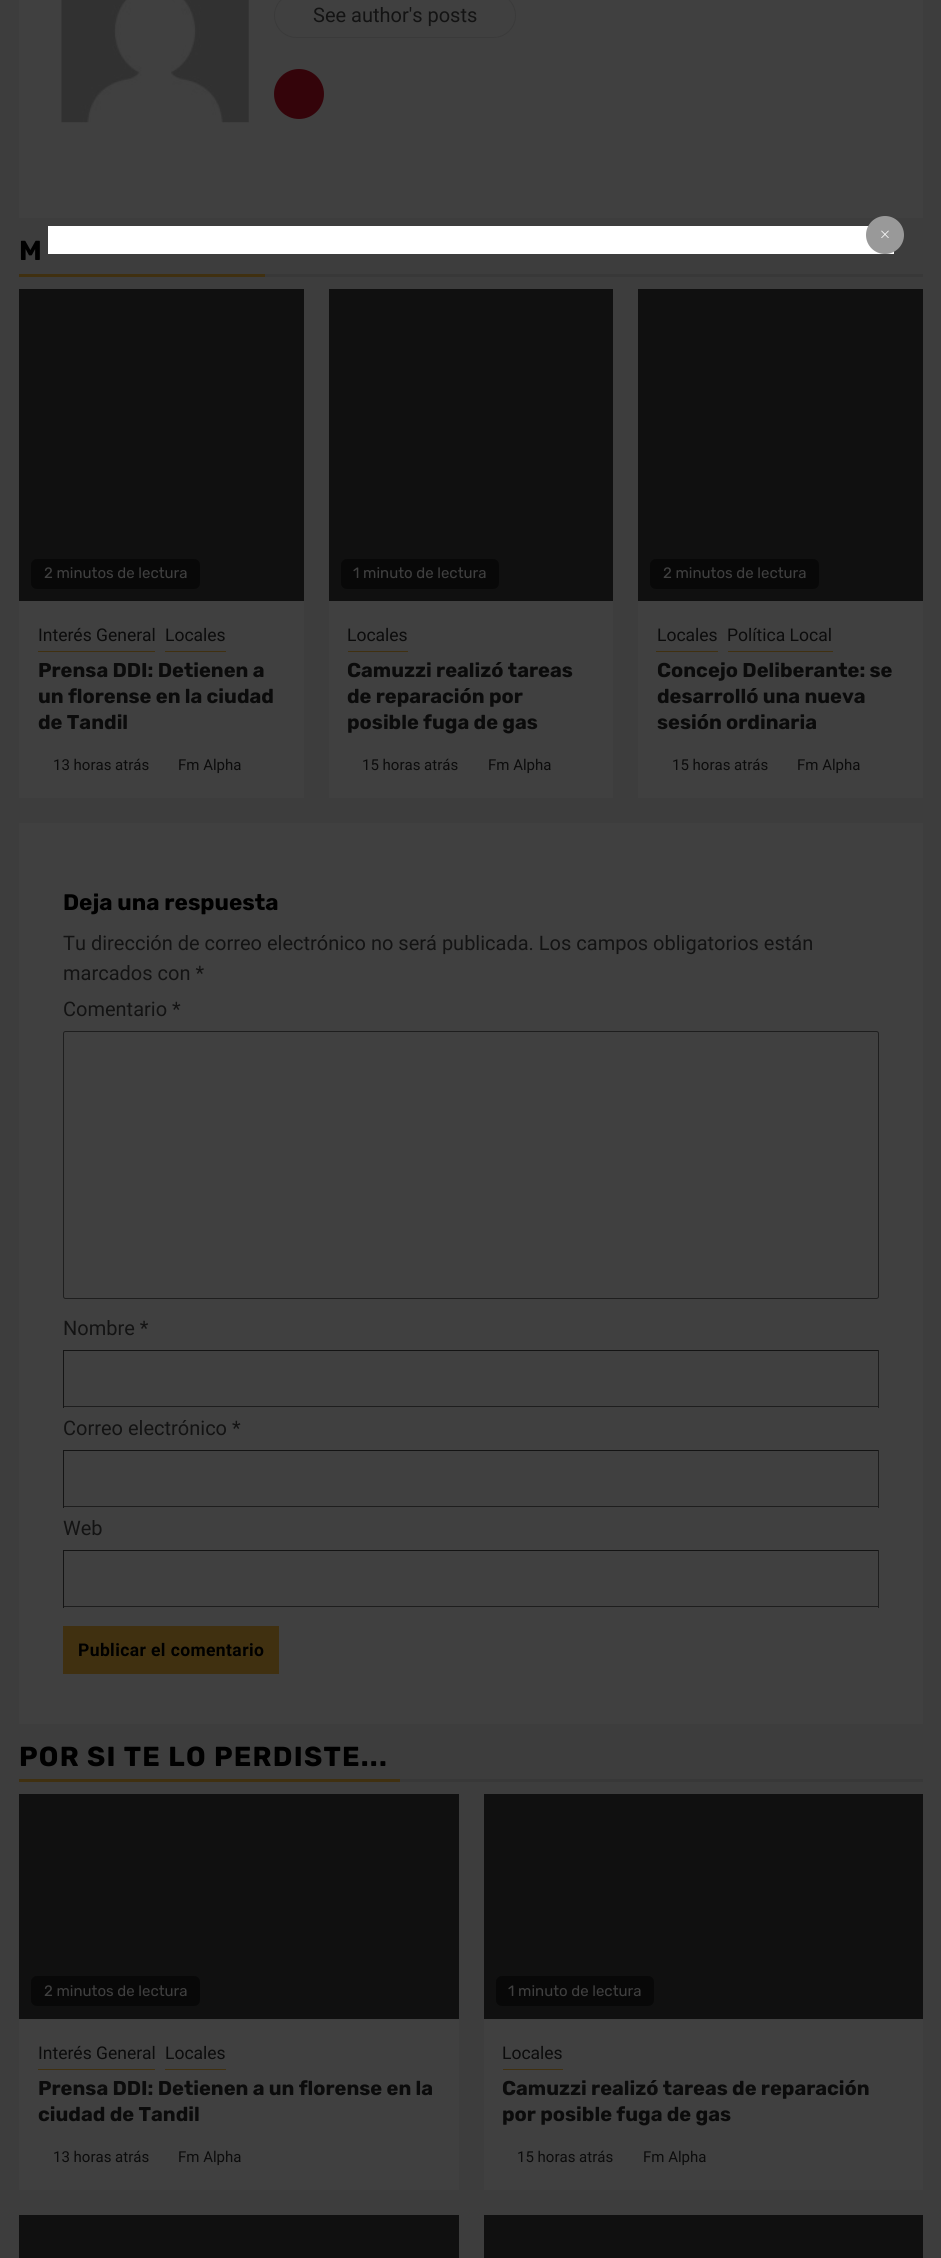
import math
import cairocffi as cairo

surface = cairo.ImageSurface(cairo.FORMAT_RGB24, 941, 2258)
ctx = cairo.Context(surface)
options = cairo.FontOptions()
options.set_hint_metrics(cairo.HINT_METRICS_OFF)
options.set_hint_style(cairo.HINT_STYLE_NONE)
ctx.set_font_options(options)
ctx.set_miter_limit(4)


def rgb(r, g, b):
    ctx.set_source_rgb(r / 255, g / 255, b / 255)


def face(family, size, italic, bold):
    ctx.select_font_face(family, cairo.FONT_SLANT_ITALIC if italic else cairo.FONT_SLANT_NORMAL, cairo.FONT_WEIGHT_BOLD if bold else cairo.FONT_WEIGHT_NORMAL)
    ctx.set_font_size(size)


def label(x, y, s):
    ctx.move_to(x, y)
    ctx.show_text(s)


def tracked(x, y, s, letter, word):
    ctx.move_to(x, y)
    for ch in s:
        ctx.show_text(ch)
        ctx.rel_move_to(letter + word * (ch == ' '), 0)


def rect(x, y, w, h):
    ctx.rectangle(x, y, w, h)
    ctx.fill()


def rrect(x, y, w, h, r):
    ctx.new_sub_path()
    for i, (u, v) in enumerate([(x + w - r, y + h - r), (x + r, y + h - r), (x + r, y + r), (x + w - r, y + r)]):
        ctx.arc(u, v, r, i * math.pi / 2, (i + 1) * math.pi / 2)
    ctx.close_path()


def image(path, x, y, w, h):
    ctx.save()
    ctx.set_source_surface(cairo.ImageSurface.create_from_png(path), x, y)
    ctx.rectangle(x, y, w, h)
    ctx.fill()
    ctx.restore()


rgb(61, 61, 61)
ctx.paint()
rgb(64, 64, 64)
rect(19, 0, 904, 218)
image('image0.png', 61, 0, 188, 123)
rrect(274.5, -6.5, 241, 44, 22)
rgb(58, 58, 58)
ctx.set_line_width(1)
ctx.stroke()
face('Roboto', 20, 0, 0)
rgb(19, 19, 19)
label(313, 22, 'See author\'s posts')
rgb(52, 4, 10)
ctx.new_path()
ctx.arc(299, 94, 25, 0, 2 * math.pi)
ctx.fill()
rgb(64, 48, 16)
rect(19, 274, 246, 3)
face('Rubik', 27.5, 0, 1)
rgb(0, 0, 0)
tracked(19, 260, 'M', 1.25, 0)
rgb(56, 56, 56)
rect(265, 274, 658, 3)
rgb(64, 64, 64)
rect(19, 601, 285, 197)
rgb(16, 16, 16)
rect(19, 289, 285, 312)
rgb(8, 8, 8)
rrect(31, 559, 169, 30, 6)
ctx.fill()
face('Rubik', 15, 0, 0)
rgb(64, 64, 64)
label(44, 578, '2 minutos de lectura')
rgb(64, 48, 16)
rect(38, 651, 117, 1)
face('Roboto', 17.5, 0, 0)
rgb(11, 11, 11)
label(38, 641, 'Interés General')
rgb(64, 48, 16)
rect(165, 651, 61, 1)
rgb(11, 11, 11)
label(165, 641, 'Locales')
face('Rubik', 20, 0, 1)
label(38, 677, 'Prensa DDI: Detienen a')
label(38, 703, 'un florense en la ciudad')
label(38, 729, 'de Tandil')
face('Roboto', 15, 0, 0)
label(53, 770, '13 horas atrás')
label(178, 770, 'Fm Alpha')
rgb(64, 64, 64)
rect(329, 601, 284, 197)
rgb(16, 16, 16)
rect(329, 289, 284, 312)
rgb(8, 8, 8)
rrect(341, 559, 158, 30, 6)
ctx.fill()
face('Rubik', 15, 0, 0)
rgb(64, 64, 64)
label(353, 578, '1 minuto de lectura')
rgb(64, 48, 16)
rect(348, 651, 60, 1)
face('Roboto', 17.5, 0, 0)
rgb(11, 11, 11)
label(347, 641, 'Locales')
face('Rubik', 20, 0, 1)
label(347, 677, 'Camuzzi realizó tareas')
label(347, 703, 'de reparación por')
label(347, 729, 'posible fuga de gas')
face('Roboto', 15, 0, 0)
label(362, 770, '15 horas atrás')
label(488, 770, 'Fm Alpha')
rgb(64, 64, 64)
rect(638, 601, 285, 197)
rgb(16, 16, 16)
rect(638, 289, 285, 312)
rgb(8, 8, 8)
rrect(650, 559, 169, 30, 6)
ctx.fill()
face('Rubik', 15, 0, 0)
rgb(64, 64, 64)
label(663, 578, '2 minutos de lectura')
rgb(64, 48, 16)
rect(656, 651, 62, 1)
face('Roboto', 17.5, 0, 0)
rgb(11, 11, 11)
label(657, 641, 'Locales')
rgb(64, 48, 16)
rect(728, 651, 105, 1)
rgb(11, 11, 11)
label(727, 641, 'Política Local')
face('Rubik', 20, 0, 1)
label(657, 677, 'Concejo Deliberante: se')
label(657, 703, 'desarrolló una nueva')
label(657, 729, 'sesión ordinaria')
face('Roboto', 15, 0, 0)
label(672, 770, '15 horas atrás')
label(797, 770, 'Fm Alpha')
rgb(64, 64, 64)
rect(19, 823, 904, 901)
face('Rubik', 22.5, 0, 1)
rgb(0, 0, 0)
label(63, 910, 'Deja una respuesta')
face('Roboto', 20, 0, 0)
rgb(19, 19, 19)
label(63, 950, 'Tu dirección de correo electrónico no será publicada. Los campos obligatorios están')
label(63, 980, 'marcados con *')
label(63, 1016, 'Comentario *')
rrect(63.5, 1031.5, 815, 267, 2)
rgb(30, 30, 30)
ctx.stroke()
rgb(19, 19, 19)
label(63, 1335, 'Nombre *')
rgb(20, 20, 20)
rect(63, 1350, 816, 1)
rgb(30, 30, 30)
rect(878, 1350, 1, 58)
rect(63, 1406, 816, 1)
rgb(20, 20, 20)
rect(63, 1350, 1, 58)
rgb(19, 19, 19)
label(63, 1435, 'Correo electrónico *')
rgb(20, 20, 20)
rect(63, 1450, 816, 1)
rgb(30, 30, 30)
rect(878, 1450, 1, 58)
rect(63, 1506, 816, 1)
rgb(20, 20, 20)
rect(63, 1450, 1, 58)
rgb(19, 19, 19)
label(63, 1535, 'Web')
rgb(20, 20, 20)
rect(63, 1550, 816, 1)
rgb(30, 30, 30)
rect(878, 1550, 1, 58)
rect(63, 1606, 816, 1)
rgb(20, 20, 20)
rect(63, 1550, 1, 58)
rgb(64, 48, 16)
rect(63, 1626, 216, 48)
face('Roboto', 17.5, 0, 1)
rgb(0, 0, 0)
tracked(78, 1656, 'Publicar el comentario', 0.4, 0)
rgb(255, 255, 255)
rect(48, 226, 846, 28)
rgb(153, 153, 153)
ctx.new_path()
ctx.arc(885, 235, 19, 0, 2 * math.pi)
ctx.fill()
image('image1.png', 881, 230, 8, 8)
rgb(64, 48, 16)
rect(19, 1779, 381, 3)
face('Rubik', 27.5, 0, 1)
rgb(0, 0, 0)
tracked(19, 1766, 'POR SI TE LO PERDISTE...', 1.25, 0)
rgb(56, 56, 56)
rect(400, 1779, 523, 3)
rgb(64, 64, 64)
rect(19, 2019, 440, 171)
rgb(16, 16, 16)
rect(19, 1794, 440, 225)
rgb(8, 8, 8)
rrect(31, 1976, 169, 30, 6)
ctx.fill()
face('Rubik', 15, 0, 0)
rgb(64, 64, 64)
label(44, 1996, '2 minutos de lectura')
rgb(64, 48, 16)
rect(38, 2069, 117, 1)
face('Roboto', 17.5, 0, 0)
rgb(11, 11, 11)
label(38, 2059, 'Interés General')
rgb(64, 48, 16)
rect(165, 2069, 61, 1)
rgb(11, 11, 11)
label(165, 2059, 'Locales')
face('Rubik', 20, 0, 1)
label(38, 2095, 'Prensa DDI: Detienen a un florense en la')
label(38, 2121, 'ciudad de Tandil')
face('Roboto', 15, 0, 0)
label(53, 2162, '13 horas atrás')
label(178, 2162, 'Fm Alpha')
rgb(64, 64, 64)
rect(484, 2019, 439, 171)
rgb(16, 16, 16)
rect(484, 1794, 439, 225)
rgb(8, 8, 8)
rrect(496, 1976, 158, 30, 6)
ctx.fill()
face('Rubik', 15, 0, 0)
rgb(64, 64, 64)
label(508, 1996, '1 minuto de lectura')
rgb(64, 48, 16)
rect(503, 2069, 60, 1)
face('Roboto', 17.5, 0, 0)
rgb(11, 11, 11)
label(502, 2059, 'Locales')
face('Rubik', 20, 0, 1)
label(502, 2095, 'Camuzzi realizó tareas de reparación')
label(502, 2121, 'por posible fuga de gas')
face('Roboto', 15, 0, 0)
label(517, 2162, '15 horas atrás')
label(643, 2162, 'Fm Alpha')
rgb(16, 16, 16)
rect(19, 2215, 440, 43)
rect(484, 2215, 439, 43)
surface.write_to_png('render.png')
